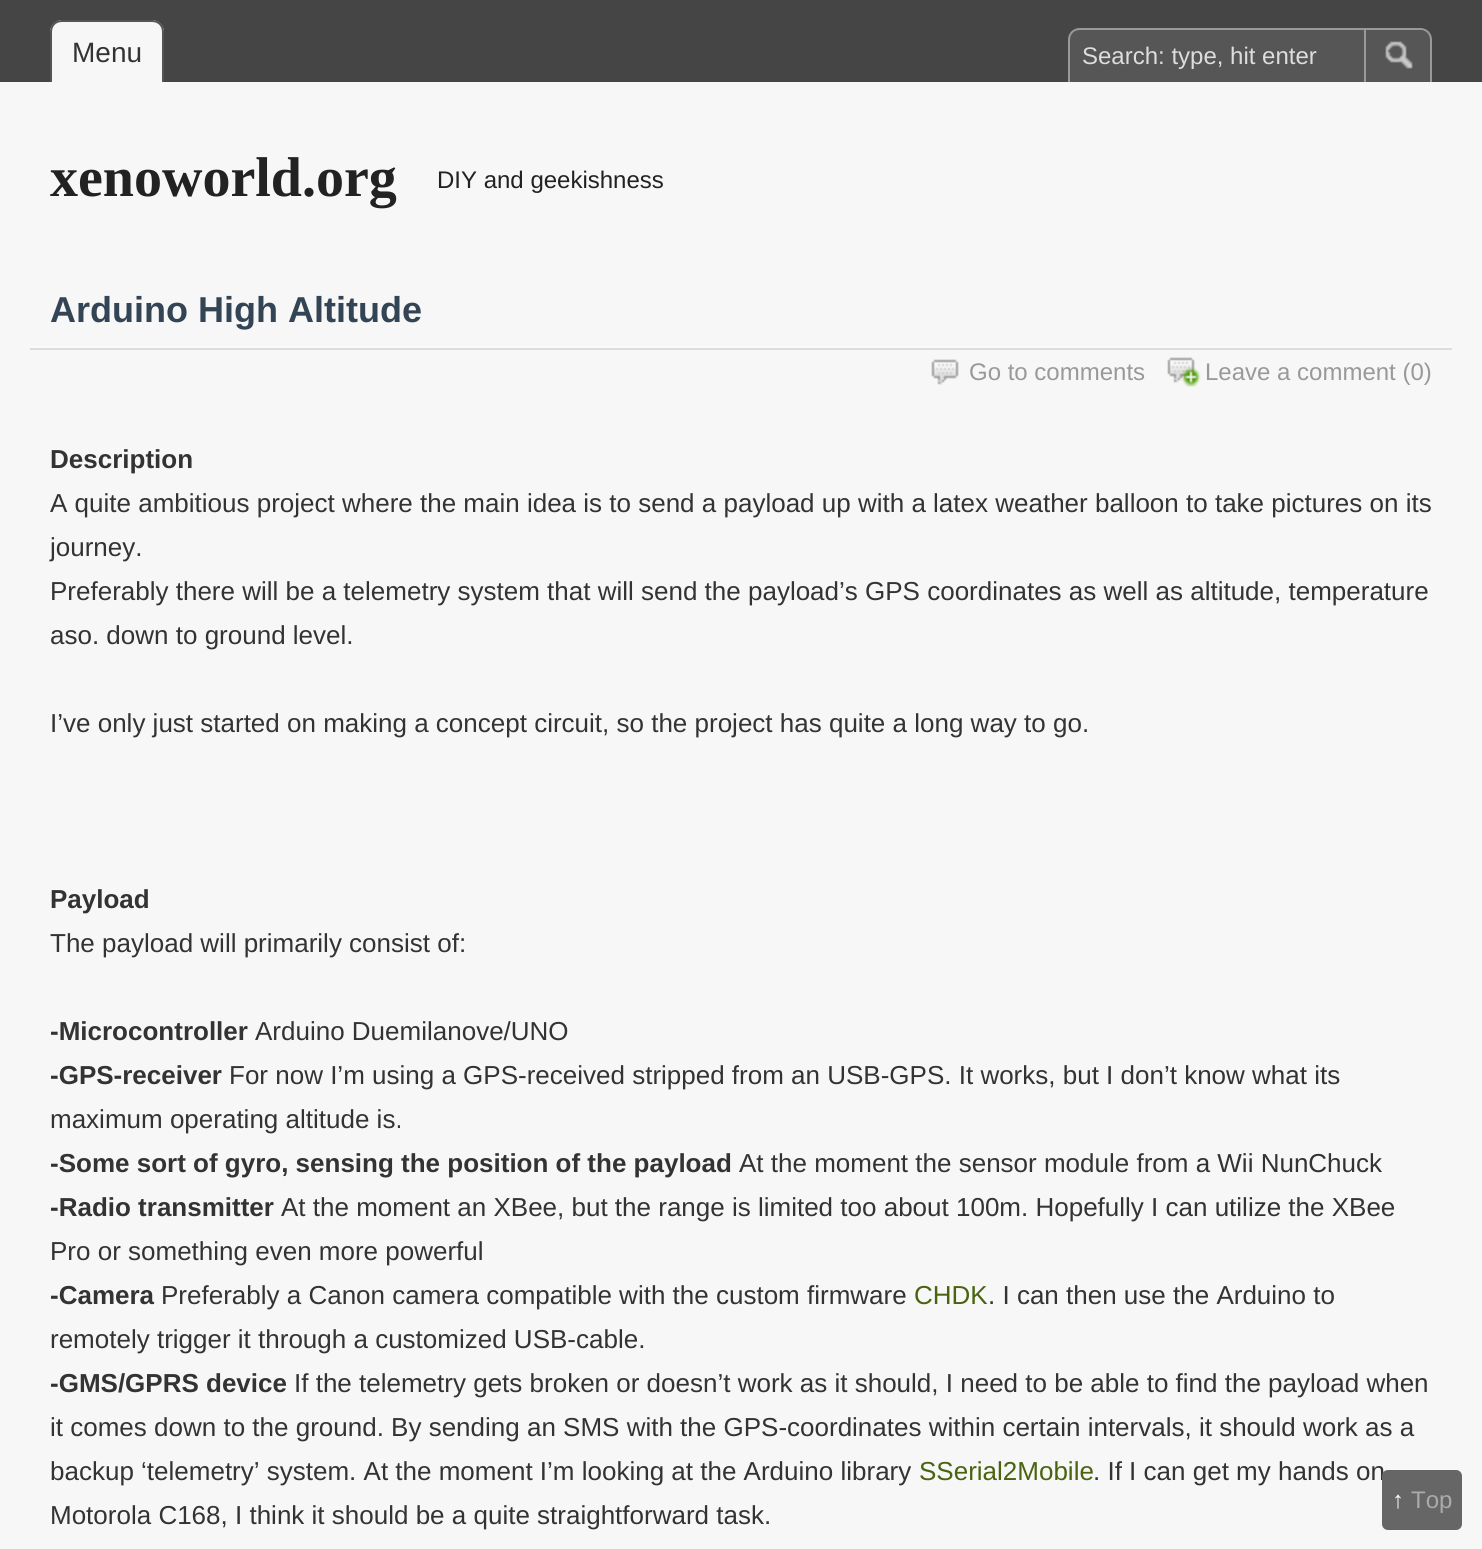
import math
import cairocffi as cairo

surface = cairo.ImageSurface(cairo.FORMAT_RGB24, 1482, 1549)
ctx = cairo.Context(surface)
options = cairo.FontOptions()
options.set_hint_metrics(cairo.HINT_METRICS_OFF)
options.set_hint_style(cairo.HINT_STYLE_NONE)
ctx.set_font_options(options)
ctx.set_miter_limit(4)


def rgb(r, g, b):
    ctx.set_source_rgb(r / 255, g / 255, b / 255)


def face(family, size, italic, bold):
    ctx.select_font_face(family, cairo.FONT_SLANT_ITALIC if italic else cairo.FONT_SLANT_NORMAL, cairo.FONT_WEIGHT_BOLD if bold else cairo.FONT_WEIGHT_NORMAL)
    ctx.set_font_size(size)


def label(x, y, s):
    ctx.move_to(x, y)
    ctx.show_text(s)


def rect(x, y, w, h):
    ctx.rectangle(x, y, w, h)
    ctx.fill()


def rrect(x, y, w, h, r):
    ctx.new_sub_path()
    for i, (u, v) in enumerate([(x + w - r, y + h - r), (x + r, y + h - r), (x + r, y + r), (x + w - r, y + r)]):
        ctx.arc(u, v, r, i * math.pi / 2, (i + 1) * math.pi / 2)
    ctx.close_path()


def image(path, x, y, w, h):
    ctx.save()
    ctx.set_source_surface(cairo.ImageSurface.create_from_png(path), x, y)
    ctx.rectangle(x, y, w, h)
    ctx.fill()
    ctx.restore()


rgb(247, 247, 247)
ctx.paint()
rgb(69, 69, 70)
rect(0, 0, 1482, 82)
rgb(247, 247, 247)
ctx.new_path()
ctx.move_to(62, 20)
ctx.line_to(152, 20)
ctx.curve_to(158.5, 20, 164, 25.5, 164, 32)
ctx.line_to(164, 82)
ctx.line_to(50, 82)
ctx.line_to(50, 32)
ctx.curve_to(50, 25.5, 55.5, 20, 62, 20)
ctx.close_path()
ctx.fill()
rgb(85, 85, 85)
ctx.set_fill_rule(cairo.FILL_RULE_EVEN_ODD)
ctx.new_path()
ctx.move_to(62, 20)
ctx.line_to(152, 20)
ctx.curve_to(159, 20, 164, 25, 164, 32)
ctx.line_to(164, 82)
ctx.line_to(50, 82)
ctx.line_to(50, 32)
ctx.curve_to(50, 25, 55, 20, 62, 20)
ctx.close_path()
ctx.move_to(62, 22)
ctx.line_to(152, 22)
ctx.curve_to(158, 22, 162, 26, 162, 32)
ctx.line_to(162, 82)
ctx.line_to(52, 82)
ctx.line_to(52, 32)
ctx.curve_to(52, 26, 56, 22, 62, 22)
ctx.close_path()
ctx.fill()
face('Liberation Sans', 28, 0, 0)
rgb(51, 51, 51)
label(72, 62, 'Menu')
rgb(86, 86, 87)
ctx.new_path()
ctx.move_to(1080, 28)
ctx.line_to(1420, 28)
ctx.curve_to(1426.5, 28, 1432, 33.5, 1432, 40)
ctx.line_to(1432, 82)
ctx.line_to(1068, 82)
ctx.line_to(1068, 40)
ctx.curve_to(1068, 33.5, 1073.5, 28, 1080, 28)
ctx.close_path()
ctx.fill()
rgb(153, 153, 153)
ctx.new_path()
ctx.move_to(1080, 28)
ctx.line_to(1420, 28)
ctx.curve_to(1427, 28, 1432, 33, 1432, 40)
ctx.line_to(1432, 82)
ctx.line_to(1068, 82)
ctx.line_to(1068, 40)
ctx.curve_to(1068, 33, 1073, 28, 1080, 28)
ctx.close_path()
ctx.move_to(1080, 30)
ctx.line_to(1420, 30)
ctx.curve_to(1426, 30, 1430, 34, 1430, 40)
ctx.line_to(1430, 82)
ctx.line_to(1070, 82)
ctx.line_to(1070, 40)
ctx.curve_to(1070, 34, 1074, 30, 1080, 30)
ctx.close_path()
ctx.fill()
face('Liberation Sans', 24, 0, 0)
rgb(221, 221, 221)
label(1082, 64, 'Search: type, hit enter')
ctx.save()
ctx.set_fill_rule(cairo.FILL_RULE_WINDING)
ctx.new_path()
ctx.move_to(1080, 30)
ctx.line_to(1420, 30)
ctx.curve_to(1425.5, 30, 1430, 34.5, 1430, 40)
ctx.line_to(1430, 82)
ctx.line_to(1070, 82)
ctx.line_to(1070, 40)
ctx.curve_to(1070, 34.5, 1074.5, 30, 1080, 30)
ctx.close_path()
ctx.clip()
rgb(86, 86, 87)
rect(1366, 30, 60, 52)
ctx.restore()
image('image0.png', 1385, 41, 28, 28)
rgb(153, 153, 153)
rect(1364, 30, 2, 52)
face('Liberation Serif', 56, 0, 1)
rgb(34, 34, 34)
label(50, 196, 'xenoworld.org')
face('Liberation Sans', 24, 0, 0)
label(437, 188, 'DIY and geekishness')
rgb(250, 250, 250)
rect(30, 346, 1422, 2)
face('Liberation Sans', 36, 0, 1)
rgb(51, 68, 85)
label(50, 322, 'Arduino High Altitude')
rgb(221, 221, 221)
rect(30, 348, 1422, 2)
image('image1.png', 931, 359, 28, 26)
face('Liberation Sans', 24, 0, 0)
rgb(153, 153, 153)
label(969, 380, 'Go to comments')
image('image2.png', 1167, 357, 34, 30)
label(1205, 380, 'Leave a comment (0)')
face('Liberation Sans', 26, 0, 1)
rgb(51, 51, 51)
label(50, 468, 'Description')
face('Liberation Sans', 26, 0, 0)
label(50, 512, 'A quite ambitious project where the main idea is to send a payload up with a latex weather balloon to take pictures on its')
label(50, 556, 'journey.')
label(50, 600, 'Preferably there will be a telemetry system that will send the payload’s GPS coordinates as well as altitude, temperature')
label(50, 644, 'aso. down to ground level.')
label(50, 732, 'I’ve only just started on making a concept circuit, so the project has quite a long way to go.')
face('Liberation Sans', 26, 0, 1)
label(50, 908, 'Payload')
face('Liberation Sans', 26, 0, 0)
label(50, 952, 'The payload will primarily consist of:')
face('Liberation Sans', 26, 0, 1)
label(50, 1040, '-Microcontroller')
face('Liberation Sans', 26, 0, 0)
label(255, 1040, 'Arduino Duemilanove/UNO')
face('Liberation Sans', 26, 0, 1)
label(50, 1084, '-GPS-receiver')
face('Liberation Sans', 26, 0, 0)
label(229, 1084, 'For now I’m using a GPS-received stripped from an USB-GPS. It works, but I don’t know what its')
label(50, 1128, 'maximum operating altitude is.')
face('Liberation Sans', 26, 0, 1)
label(50, 1172, '-Some sort of gyro, sensing the position of the payload')
face('Liberation Sans', 26, 0, 0)
label(739, 1172, 'At the moment the sensor module from a Wii NunChuck')
face('Liberation Sans', 26, 0, 1)
label(50, 1216, '-Radio transmitter')
face('Liberation Sans', 26, 0, 0)
label(281, 1216, 'At the moment an XBee, but the range is limited too about 100m. Hopefully I can utilize the XBee')
label(50, 1260, 'Pro or something even more powerful')
face('Liberation Sans', 26, 0, 1)
label(50, 1304, '-Camera')
face('Liberation Sans', 26, 0, 0)
label(161, 1304, 'Preferably a Canon camera compatible with the custom firmware')
rgb(74, 99, 15)
label(914, 1304, 'CHDK')
rgb(51, 51, 51)
label(988, 1304, '. I can then use the Arduino to')
label(50, 1348, 'remotely trigger it through a customized USB-cable.')
face('Liberation Sans', 26, 0, 1)
label(50, 1392, '-GMS/GPRS device')
face('Liberation Sans', 26, 0, 0)
label(294, 1392, 'If the telemetry gets broken or doesn’t work as it should, I need to be able to find the payload when')
label(50, 1436, 'it comes down to the ground. By sending an SMS with the GPS-coordinates within certain intervals, it should work as a')
label(50, 1480, 'backup ‘telemetry’ system. At the moment I’m looking at the Arduino library')
rgb(74, 99, 15)
label(919, 1480, 'SSerial2Mobile')
rgb(51, 51, 51)
label(1093, 1480, '. If I can get my hands on')
label(50, 1524, 'Motorola C168, I think it should be a quite straightforward task.')
rgb(102, 102, 102)
rrect(1382, 1470, 80, 60, 6)
ctx.fill()
face('Liberation Sans', 24, 0, 1)
rgb(250, 250, 250)
label(1392, 1508, '↑')
face('Liberation Sans', 24, 0, 0)
rgb(170, 170, 170)
label(1411, 1508, 'Top')
surface.write_to_png('render.png')
